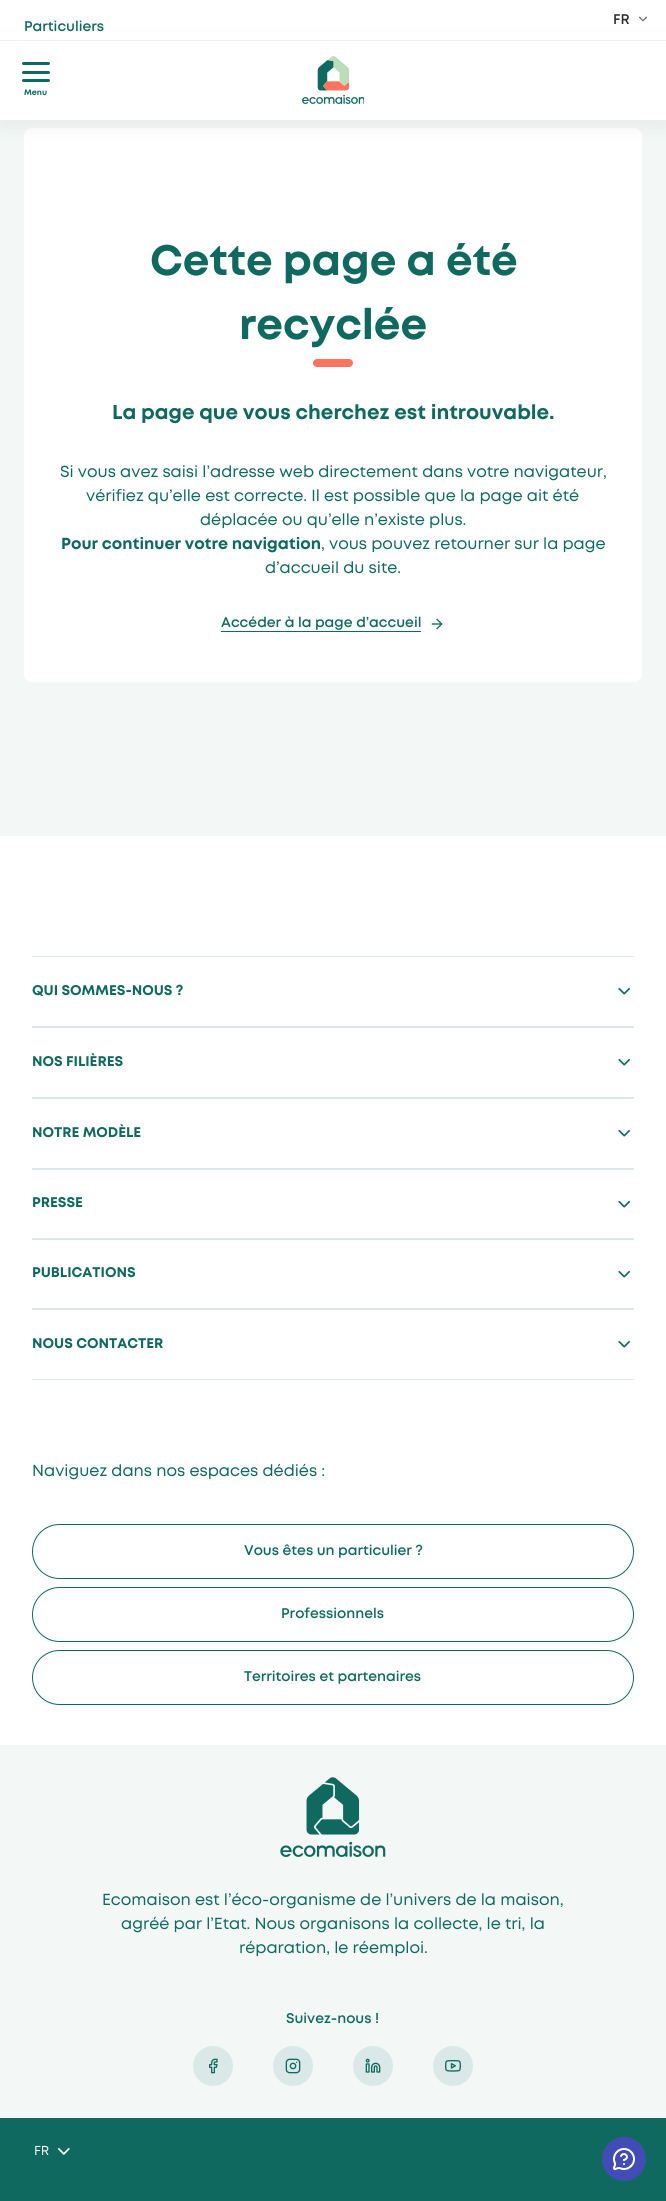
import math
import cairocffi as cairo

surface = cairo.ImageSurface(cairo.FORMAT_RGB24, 666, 2201)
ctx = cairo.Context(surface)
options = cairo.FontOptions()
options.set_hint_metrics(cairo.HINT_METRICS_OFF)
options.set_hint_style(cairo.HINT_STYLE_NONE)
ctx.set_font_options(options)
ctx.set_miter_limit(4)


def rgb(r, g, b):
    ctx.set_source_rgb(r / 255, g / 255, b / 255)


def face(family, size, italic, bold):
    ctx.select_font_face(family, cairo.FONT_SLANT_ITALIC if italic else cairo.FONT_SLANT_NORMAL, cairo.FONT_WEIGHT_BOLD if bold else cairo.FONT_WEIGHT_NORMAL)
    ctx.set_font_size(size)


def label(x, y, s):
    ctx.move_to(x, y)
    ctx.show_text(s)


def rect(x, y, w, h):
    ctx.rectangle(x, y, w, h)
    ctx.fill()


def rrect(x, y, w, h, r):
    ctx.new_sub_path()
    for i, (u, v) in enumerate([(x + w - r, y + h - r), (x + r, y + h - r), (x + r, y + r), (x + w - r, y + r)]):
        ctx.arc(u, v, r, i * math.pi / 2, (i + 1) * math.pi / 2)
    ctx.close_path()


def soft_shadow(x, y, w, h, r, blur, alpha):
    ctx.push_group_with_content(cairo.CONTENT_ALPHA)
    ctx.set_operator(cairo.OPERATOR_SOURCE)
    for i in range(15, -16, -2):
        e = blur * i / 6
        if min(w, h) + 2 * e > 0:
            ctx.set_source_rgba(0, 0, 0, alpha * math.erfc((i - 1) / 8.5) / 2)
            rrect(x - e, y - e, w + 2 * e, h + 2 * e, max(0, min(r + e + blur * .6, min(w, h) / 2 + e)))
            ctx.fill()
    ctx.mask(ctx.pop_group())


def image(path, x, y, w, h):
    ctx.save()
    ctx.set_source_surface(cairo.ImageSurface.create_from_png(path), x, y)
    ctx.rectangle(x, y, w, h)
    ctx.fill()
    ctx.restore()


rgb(255, 255, 255)
ctx.paint()
rgb(243, 248, 247)
rect(0, 120, 666, 716)
rgb(255, 255, 255)
rrect(24, 128, 618, 554, 8)
ctx.fill()
rgb(42, 44, 43)
soft_shadow(0, 44, 666, 80, 0, 12, 0.08)
rgb(255, 255, 255)
rect(0, 32, 666, 8)
face('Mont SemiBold', 14, 0, 0)
rgb(42, 44, 43)
label(613, 24, 'FR')
image('image0.png', 639, 16, 8, 6)
rgb(15, 105, 95)
label(24, 31, 'Particuliers')
rgb(237, 240, 245)
rect(0, 40, 666, 1)
rgb(255, 255, 255)
rect(0, 41, 666, 79)
rgb(15, 105, 95)
rrect(22, 62, 28, 3, 1.5)
ctx.fill()
rrect(22, 71, 28, 3, 1.5)
ctx.fill()
rrect(22, 79, 28, 3, 1.5)
ctx.fill()
face('Mont', 8, 0, 1)
label(24, 95, 'Menu')
image('image1.png', 302, 56, 62, 48)
face('Mont', 42.5, 0, 1)
label(150, 275, 'Cette page a été')
label(239, 339, 'recyclée')
rgb(255, 115, 95)
rrect(313, 359, 40, 8, 4)
ctx.fill()
face('Mont', 20, 0, 1)
rgb(15, 105, 95)
label(112, 419, 'La page que vous cherchez est introuvable.')
face('Mont', 16, 0, 0)
label(60, 477, 'Si vous avez saisi l’adresse web directement dans votre navigateur,')
label(86, 501, 'vérifiez qu’elle est correcte. Il est possible que la page ait été')
label(200, 525, 'déplacée ou qu’elle n’existe plus.')
face('Mont', 16, 0, 1)
label(61, 549, 'Pour continuer votre navigation')
face('Mont', 16, 0, 0)
label(321, 549, ', vous pouvez retourner sur la page')
label(265, 573, 'd’accueil du site.')
face('Mont SemiBold', 14, 0, 0)
label(221, 627, 'Accéder à la page d’accueil')
rect(221, 631, 200, 1)
image('image2.png', 431, 618, 12, 12)
rgb(218, 233, 231)
rect(32, 956, 602, 1)
rect(32, 1026, 602, 2)
face('Mont', 14, 0, 1)
rgb(15, 105, 95)
label(32, 995, 'QUI SOMMES-NOUS ?')
image('image3.png', 618, 987, 12, 8)
rgb(218, 233, 231)
rect(32, 1097, 602, 2)
rgb(15, 105, 95)
label(32, 1066, 'NOS FILIÈRES')
image('image3.png', 618, 1058, 12, 8)
rgb(218, 233, 231)
rect(32, 1168, 602, 2)
rgb(15, 105, 95)
label(32, 1137, 'NOTRE MODÈLE')
image('image3.png', 618, 1129, 12, 8)
rgb(218, 233, 231)
rect(32, 1238, 602, 2)
rgb(15, 105, 95)
label(32, 1207, 'PRESSE')
image('image3.png', 618, 1200, 12, 8)
rgb(218, 233, 231)
rect(32, 1308, 602, 2)
rgb(15, 105, 95)
label(32, 1277, 'PUBLICATIONS')
image('image3.png', 618, 1270, 12, 8)
rgb(218, 233, 231)
rect(32, 1379, 602, 1)
rgb(15, 105, 95)
label(32, 1348, 'NOUS CONTACTER')
image('image3.png', 618, 1340, 12, 8)
face('Mont', 16, 0, 0)
label(32, 1476, 'Naviguez dans nos espaces dédiés :')
rrect(32.5, 1524.5, 601, 54, 27)
ctx.set_line_width(1)
ctx.stroke()
face('Mont SemiBold', 14, 0, 0)
label(244, 1555, 'Vous êtes un particulier ?')
rrect(32.5, 1587.5, 601, 54, 27)
ctx.stroke()
label(281, 1618, 'Professionnels')
rrect(32.5, 1650.5, 601, 54, 27)
ctx.stroke()
label(244, 1681, 'Territoires et partenaires')
rgb(243, 248, 247)
rect(0, 1745, 666, 373)
image('image4.png', 280, 1777, 106, 80)
face('Mont', 16, 0, 0)
rgb(15, 105, 95)
label(102, 1905, 'Ecomaison est l’éco-organisme de l’univers de la maison,')
label(121, 1929, 'agréé par l’Etat. Nous organisons la collecte, le tri, la')
label(239, 1953, 'réparation, le réemploi.')
face('Mont SemiBold', 14, 0, 0)
label(286, 2023, 'Suivez-nous !')
rgb(218, 233, 231)
ctx.new_path()
ctx.arc(213, 2066, 20, 0, 2 * math.pi)
ctx.fill()
image('image5.png', 209, 2058, 9, 16)
ctx.arc(293, 2066, 20, 0, 2 * math.pi)
ctx.fill()
image('image6.png', 285, 2058, 16, 16)
ctx.arc(373, 2066, 20, 0, 2 * math.pi)
ctx.fill()
image('image7.png', 365, 2058, 16, 15)
ctx.arc(453, 2066, 20, 0, 2 * math.pi)
ctx.fill()
image('image8.png', 445, 2060, 16, 12)
rgb(15, 105, 95)
rect(0, 2118, 666, 83)
face('Mont', 13, 0, 0)
rgb(255, 255, 255)
label(34, 2155, 'FR')
image('image9.png', 58, 2148, 12, 7)
rgb(65, 77, 181)
ctx.arc(624, 2159, 22, 0, 2 * math.pi)
ctx.fill()
image('image10.png', 613, 2148, 22, 22)
surface.write_to_png('render.png')
